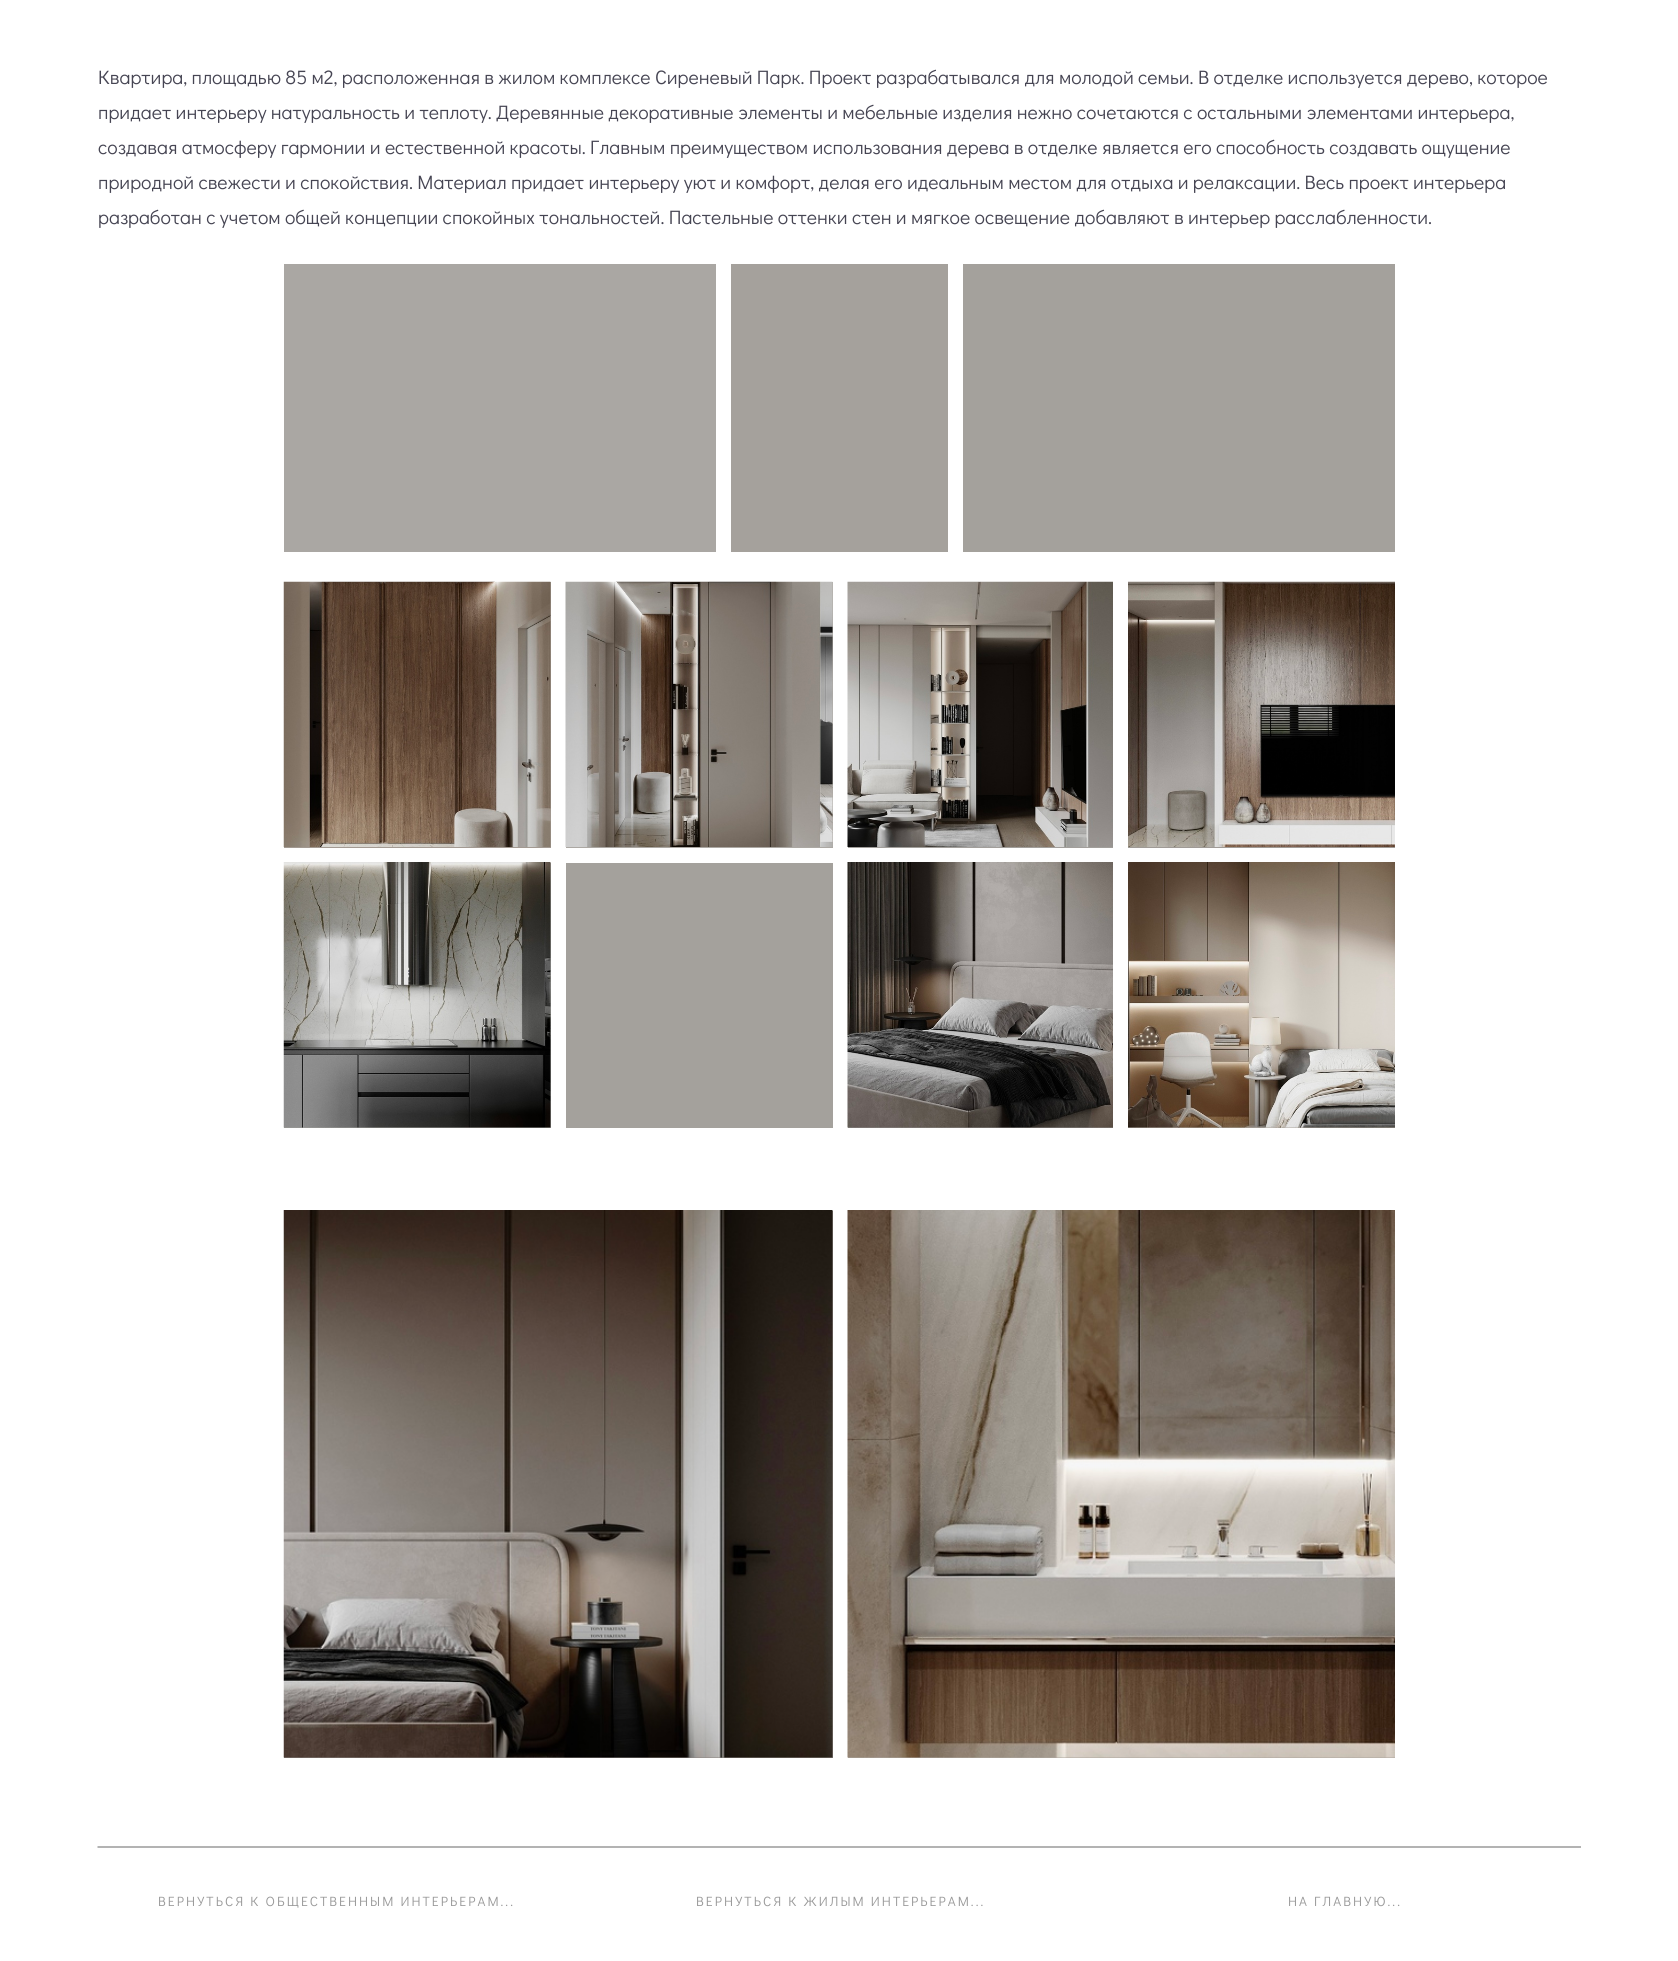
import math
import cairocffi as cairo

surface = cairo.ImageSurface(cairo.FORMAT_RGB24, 1678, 1961)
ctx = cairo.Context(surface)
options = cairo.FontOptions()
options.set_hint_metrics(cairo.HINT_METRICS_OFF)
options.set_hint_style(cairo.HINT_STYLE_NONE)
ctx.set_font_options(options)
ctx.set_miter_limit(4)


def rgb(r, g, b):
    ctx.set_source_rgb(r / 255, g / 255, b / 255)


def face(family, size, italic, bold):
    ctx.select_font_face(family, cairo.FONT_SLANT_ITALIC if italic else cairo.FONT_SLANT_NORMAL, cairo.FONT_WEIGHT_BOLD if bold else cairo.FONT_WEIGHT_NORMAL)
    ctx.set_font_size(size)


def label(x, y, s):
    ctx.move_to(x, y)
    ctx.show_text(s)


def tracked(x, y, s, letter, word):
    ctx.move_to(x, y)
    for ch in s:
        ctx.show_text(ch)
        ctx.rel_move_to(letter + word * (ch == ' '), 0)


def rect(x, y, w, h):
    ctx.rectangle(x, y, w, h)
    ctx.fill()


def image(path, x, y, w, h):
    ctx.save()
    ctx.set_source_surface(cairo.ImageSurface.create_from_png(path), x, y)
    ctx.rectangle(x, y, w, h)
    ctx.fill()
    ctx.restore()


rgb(255, 255, 255)
ctx.paint()
face('Didact Gothic', 19.5, 0, 0)
rgb(70, 69, 83)
label(98, 84, 'Квартира, площадью 85 м2, расположенная в жилом комплексе Сиреневый Парк. Проект разрабатывался для молодой семьи. В отделке используется дерево, которое')
label(98, 119, 'придает интерьеру натуральность и теплоту. Деревянные декоративные элементы и мебельные изделия нежно сочетаются с остальными элементами интерьера,')
label(98, 154, 'создавая атмосферу гармонии и естественной красоты. Главным преимуществом использования дерева в отделке является его способность создавать ощущение')
label(98, 189, 'природной свежести и спокойствия. Материал придает интерьеру уют и комфорт, делая его идеальным местом для отдыха и релаксации. Весь проект интерьера')
label(98, 224, 'разработан с учетом общей концепции спокойных тональностей. Пастельные оттенки стен и мягкое освещение добавляют в интерьер расслабленности.')
rgb(170, 167, 163)
rect(284, 264, 432, 288)
rgb(165, 161, 156)
rect(731, 264, 217, 288)
rgb(164, 161, 156)
rect(963, 264, 432, 288)
rgb(163, 154, 146)
rect(284, 582, 267, 266)
image('image0.png', 283, 581, 268, 266)
rgb(172, 168, 163)
rect(566, 582, 267, 266)
image('image1.png', 565, 581, 268, 266)
rgb(162, 159, 155)
rect(848, 847, 265, 1)
image('image2.png', 847, 581, 266, 266)
rgb(160, 155, 150)
rect(1128, 847, 267, 1)
image('image3.png', 1128, 581, 267, 266)
rgb(157, 156, 153)
rect(284, 863, 267, 265)
image('image4.png', 283, 862, 268, 266)
rgb(164, 161, 156)
rect(566, 863, 267, 265)
rgb(142, 139, 136)
rect(848, 1127, 265, 1)
image('image5.png', 847, 862, 266, 266)
rgb(174, 168, 160)
rect(1128, 1127, 267, 1)
image('image6.png', 1128, 862, 267, 266)
rgb(138, 132, 128)
rect(284, 1211, 549, 547)
image('image7.png', 283, 1210, 550, 548)
rgb(173, 166, 158)
rect(848, 1757, 547, 1)
image('image8.png', 847, 1210, 548, 548)
image('image9.png', 97, 1846, 1484, 2)
face('Didact Gothic', 13.5, 0, 0)
rgb(153, 153, 153)
tracked(158, 1906, 'ВЕРНУТЬСЯ К ОБЩЕСТВЕННЫМ ИНТЕРЬЕРАМ...', 2.05, 0)
tracked(696, 1906, 'ВЕРНУТЬСЯ К ЖИЛЫМ ИНТЕРЬЕРАМ...', 2.05, 0)
tracked(1288, 1906, 'НА ГЛАВНУЮ...', 2.05, 0)
surface.write_to_png('render.png')
